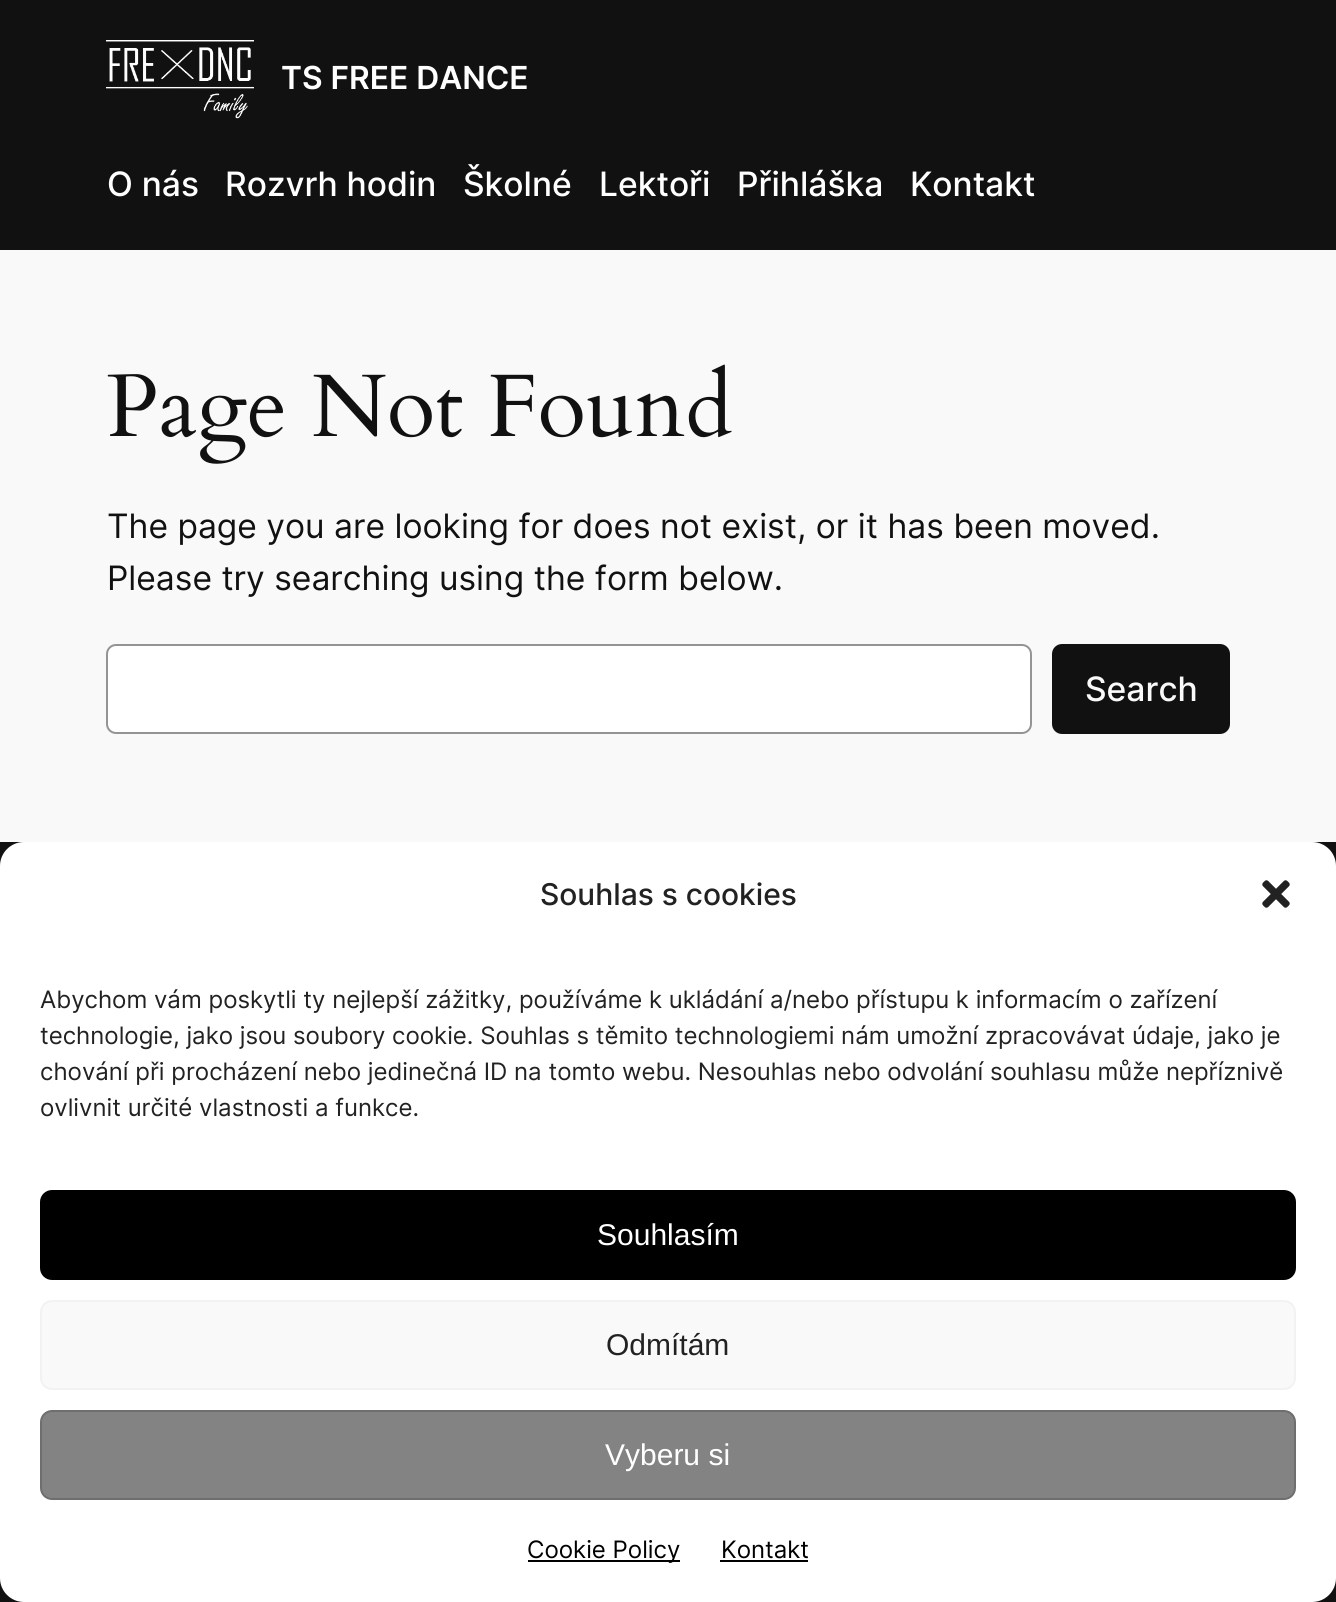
import math
import cairocffi as cairo

surface = cairo.ImageSurface(cairo.FORMAT_RGB24, 1336, 1602)
ctx = cairo.Context(surface)
options = cairo.FontOptions()
options.set_hint_metrics(cairo.HINT_METRICS_OFF)
options.set_hint_style(cairo.HINT_STYLE_NONE)
ctx.set_font_options(options)
ctx.set_miter_limit(4)


def rgb(r, g, b):
    ctx.set_source_rgb(r / 255, g / 255, b / 255)


def face(family, size, italic, bold):
    ctx.select_font_face(family, cairo.FONT_SLANT_ITALIC if italic else cairo.FONT_SLANT_NORMAL, cairo.FONT_WEIGHT_BOLD if bold else cairo.FONT_WEIGHT_NORMAL)
    ctx.set_font_size(size)


def label(x, y, s):
    ctx.move_to(x, y)
    ctx.show_text(s)


def rect(x, y, w, h):
    ctx.rectangle(x, y, w, h)
    ctx.fill()


def rrect(x, y, w, h, r):
    ctx.new_sub_path()
    for i, (u, v) in enumerate([(x + w - r, y + h - r), (x + r, y + h - r), (x + r, y + r), (x + w - r, y + r)]):
        ctx.arc(u, v, r, i * math.pi / 2, (i + 1) * math.pi / 2)
    ctx.close_path()


def image(path, x, y, w, h):
    ctx.save()
    ctx.set_source_surface(cairo.ImageSurface.create_from_png(path), x, y)
    ctx.rectangle(x, y, w, h)
    ctx.fill()
    ctx.restore()


rgb(249, 249, 249)
ctx.paint()
rgb(17, 17, 17)
rect(0, 0, 1336, 250)
image('image0.png', 106, 40, 148, 79)
face('Inter SemiBold', 31.75, 0, 0)
rgb(255, 255, 255)
label(281, 89, 'TS FREE DANCE')
face('Inter Medium', 33.6, 0, 0)
label(107, 196, 'O nás')
label(225, 196, 'Rozvrh hodin')
label(463, 196, 'Školné')
label(599, 196, 'Lektoři')
label(737, 196, 'Přihláška')
label(910, 196, 'Kontakt')
image('image1.png', 107, 364, 625, 100)
face('Inter', 33.6, 0, 0)
rgb(17, 17, 17)
label(107, 538, 'The page you are looking for does not exist, or it has been moved.')
label(107, 590, 'Please try searching using the form below.')
rgb(255, 255, 255)
rrect(107, 645, 924, 88, 9)
ctx.fill_preserve()
rgb(148, 148, 148)
ctx.stroke()
rgb(17, 17, 17)
rrect(1052, 644, 178, 90, 10)
ctx.fill()
face('Inter Medium', 33.6, 0, 0)
rgb(249, 249, 249)
label(1085, 701, 'Search')
rgb(17, 17, 17)
rect(0, 842, 1336, 760)
rgb(255, 255, 255)
rrect(0, 842, 1336, 760, 24)
ctx.fill()
face('Inter Medium', 30, 0, 0)
rgb(34, 34, 34)
label(540, 905, 'Souhlas s cookies')
image('image2.png', 1262, 880, 28, 28)
face('Inter', 24, 0, 0)
label(40, 1008, 'Abychom vám poskytli ty nejlepší zážitky, používáme k ukládání a/nebo přístupu k informacím o zařízení')
label(40, 1044, 'technologie, jako jsou soubory cookie. Souhlas s těmito technologiemi nám umožní zpracovávat údaje, jako je')
label(40, 1080, 'chování při procházení nebo jedinečná ID na tomto webu. Nesouhlas nebo odvolání souhlasu může nepříznivě')
label(40, 1116, 'ovlivnit určité vlastnosti a funkce.')
rgb(0, 0, 0)
rrect(41, 1191, 1254, 88, 11)
ctx.fill_preserve()
ctx.stroke()
face('Liberation Sans', 30, 0, 0)
rgb(255, 255, 255)
label(597, 1245, 'Souhlasím')
rgb(249, 249, 249)
rrect(41, 1301, 1254, 88, 11)
ctx.fill_preserve()
rgb(242, 242, 242)
ctx.stroke()
rgb(34, 34, 34)
label(606, 1355, 'Odmítám')
rgb(131, 131, 131)
rrect(41, 1411, 1254, 88, 11)
ctx.fill_preserve()
rgb(110, 110, 110)
ctx.stroke()
rgb(255, 255, 255)
label(605, 1465, 'Vyberu si')
rgb(0, 0, 0)
rect(528, 1560, 152, 2)
face('Inter', 24, 0, 0)
label(527, 1558, 'Cookie Policy')
label(721, 1558, 'Kontakt')
rect(720, 1560, 88, 2)
surface.write_to_png('render.png')
